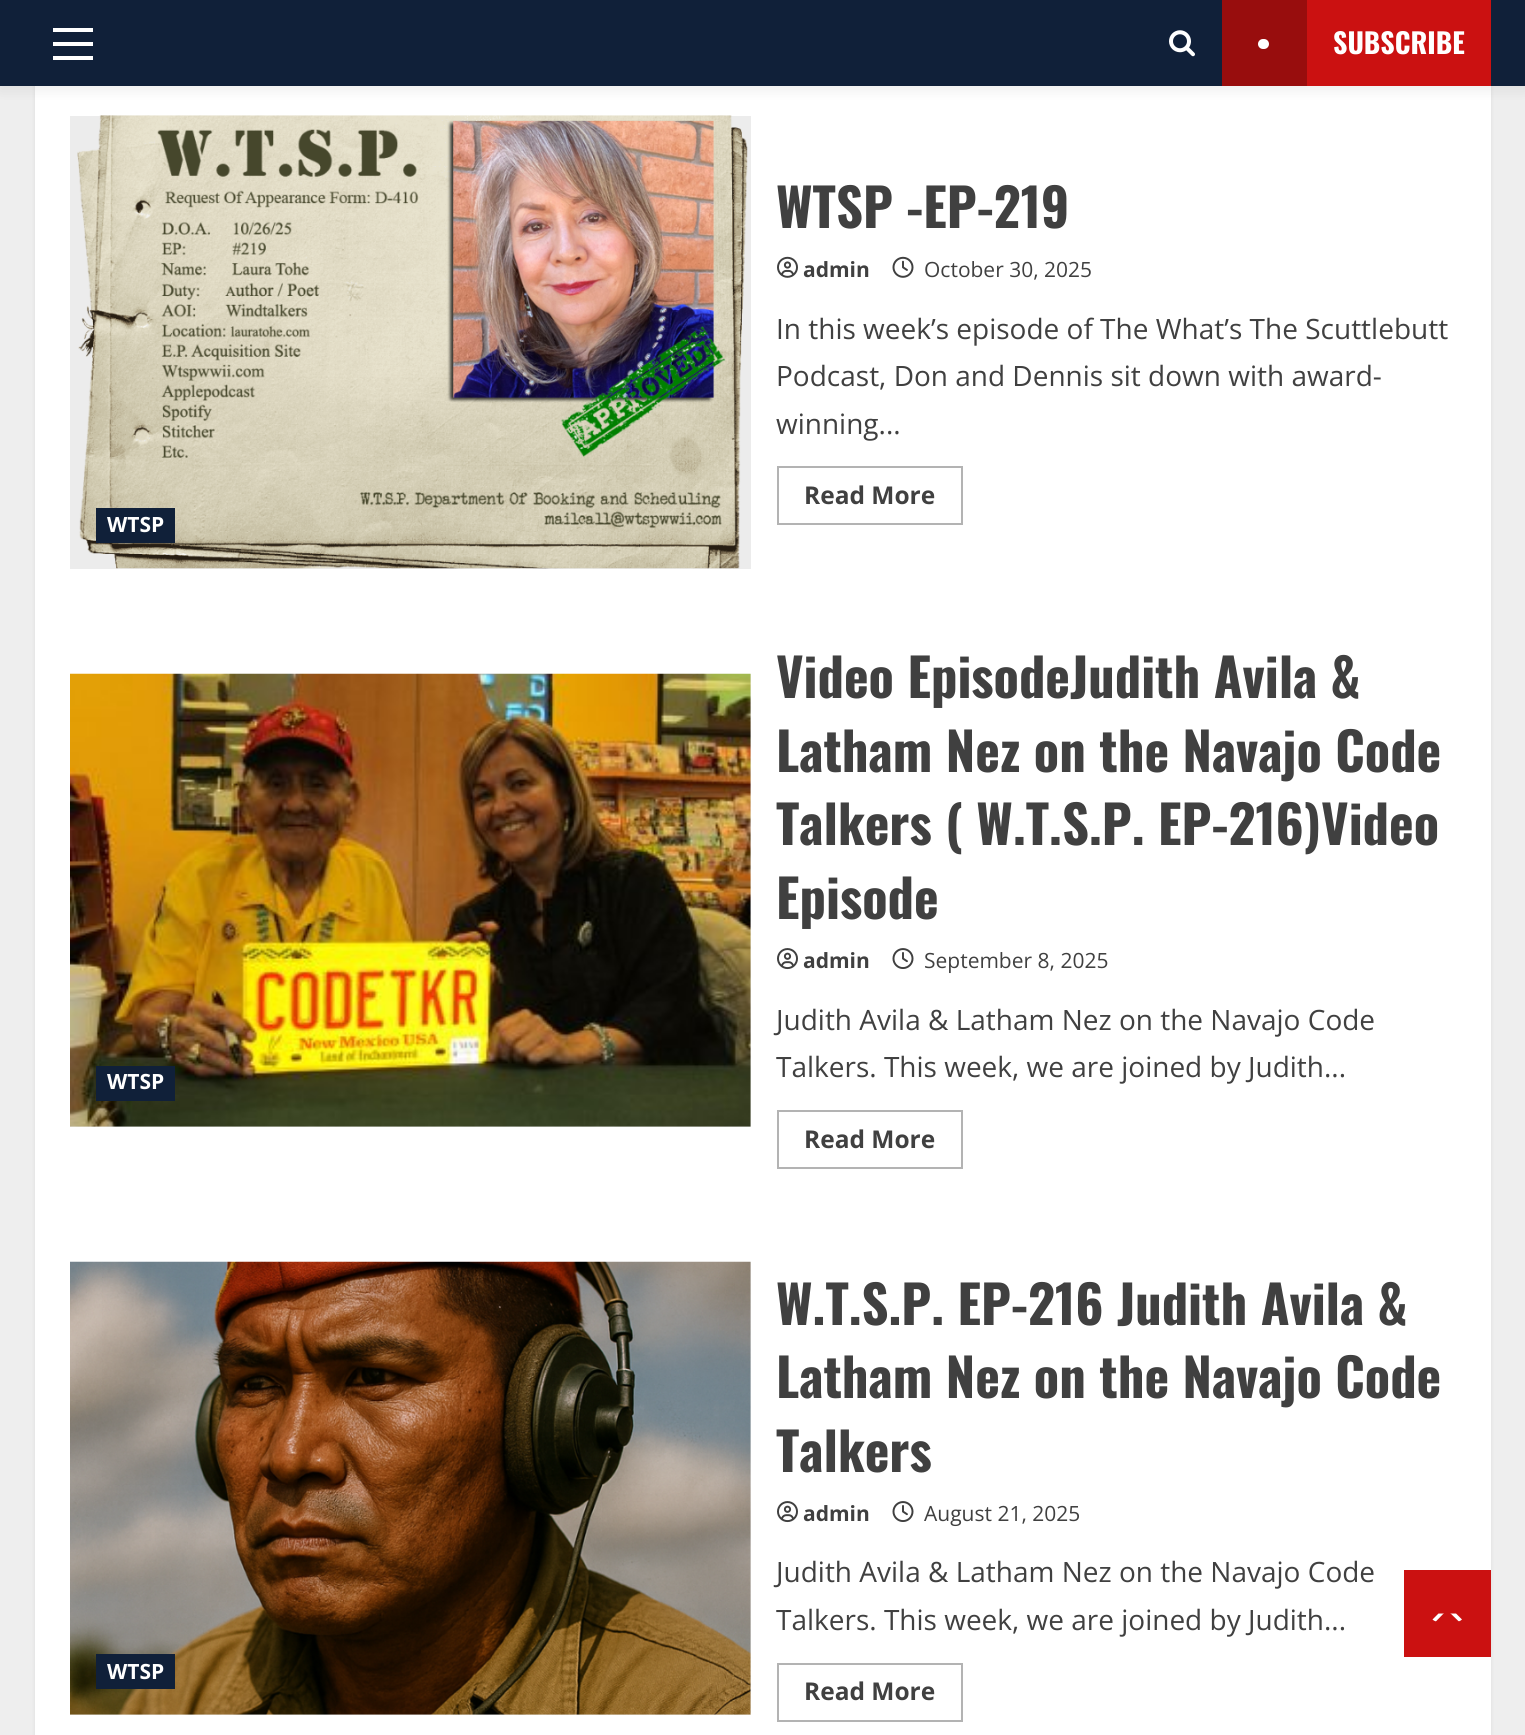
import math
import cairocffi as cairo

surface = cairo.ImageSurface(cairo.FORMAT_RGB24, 1525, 1735)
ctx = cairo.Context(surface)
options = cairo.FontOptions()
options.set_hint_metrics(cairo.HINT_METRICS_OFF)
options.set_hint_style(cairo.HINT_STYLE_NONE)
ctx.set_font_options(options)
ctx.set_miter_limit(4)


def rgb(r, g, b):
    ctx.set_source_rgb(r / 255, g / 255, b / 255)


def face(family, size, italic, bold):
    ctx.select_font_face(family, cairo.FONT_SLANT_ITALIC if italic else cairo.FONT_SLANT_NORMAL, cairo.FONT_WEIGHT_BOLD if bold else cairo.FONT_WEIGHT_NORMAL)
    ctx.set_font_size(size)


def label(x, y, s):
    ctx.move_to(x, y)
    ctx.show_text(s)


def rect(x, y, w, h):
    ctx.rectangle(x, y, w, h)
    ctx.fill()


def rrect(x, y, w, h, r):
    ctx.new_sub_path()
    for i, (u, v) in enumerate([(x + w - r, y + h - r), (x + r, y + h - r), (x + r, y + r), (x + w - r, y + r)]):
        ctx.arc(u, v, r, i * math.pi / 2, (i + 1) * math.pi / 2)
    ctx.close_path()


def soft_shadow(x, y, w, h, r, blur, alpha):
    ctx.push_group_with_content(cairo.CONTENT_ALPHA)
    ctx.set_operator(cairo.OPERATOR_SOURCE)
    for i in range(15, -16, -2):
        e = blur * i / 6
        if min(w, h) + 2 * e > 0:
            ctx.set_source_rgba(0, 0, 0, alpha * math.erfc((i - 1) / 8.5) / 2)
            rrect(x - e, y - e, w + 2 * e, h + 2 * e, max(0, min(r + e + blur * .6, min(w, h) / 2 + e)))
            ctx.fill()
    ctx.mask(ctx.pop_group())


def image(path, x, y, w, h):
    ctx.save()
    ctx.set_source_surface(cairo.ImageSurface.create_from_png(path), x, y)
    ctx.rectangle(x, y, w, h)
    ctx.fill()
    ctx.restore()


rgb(238, 238, 238)
ctx.paint()
rgb(0, 0, 0)
soft_shadow(35, -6, 1456, 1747, 0, 2, 0.08)
rgb(255, 255, 255)
rect(35, 86, 1456, 1649)
rgb(0, 0, 0)
soft_shadow(0, 4, 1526, 85, 0, 7, 0.08)
rgb(16, 32, 57)
rect(0, 0, 1525, 86)
rgb(255, 255, 255)
rect(53, 42, 40, 4)
rect(53, 28, 40, 4)
rect(53, 56, 40, 4)
image('image0.png', 1169, 30, 26, 27)
rgb(203, 17, 17)
rect(1307, 0, 184, 86)
rgb(152, 13, 13)
rect(1222, 0, 85, 86)
rgb(255, 255, 255)
rrect(1258, 39, 11, 10, 5)
ctx.fill()
face('Oswald', 28, 0, 1)
label(1333, 54, 'SUBSCRIBE')
face('Oswald', 52.5, 0, 1)
rgb(64, 64, 64)
label(776, 228, 'WTSP -EP-219')
image('image1.png', 777, 256, 21, 22)
face('Open Sans', 21, 0, 1)
label(803, 277, 'admin')
image('image2.png', 892, 256, 22, 22)
face('Open Sans', 21, 0, 0)
label(924, 277, 'October 30, 2025')
face('Open Sans', 28, 0, 0)
label(776, 339, 'In this week’s episode of The What’s The Scuttlebutt')
label(776, 386, 'Podcast, Don and Dennis sit down with award-')
label(776, 434, 'winning...')
ctx.rectangle(778, 467, 184, 57)
rgb(179, 179, 179)
ctx.stroke()
face('Open Sans', 24.5, 0, 1)
rgb(64, 64, 64)
label(804, 504, 'Read More')
rgb(236, 236, 236)
rect(70, 116, 681, 453)
image('image3.png', 77, 115, 671, 454)
rgb(16, 32, 57)
rect(96, 508, 79, 35)
face('Open Sans', 21, 0, 1)
rgb(255, 255, 255)
label(107, 532, 'WTSP')
rgb(236, 236, 236)
rect(70, 674, 681, 453)
image('image4.png', 70, 673, 681, 454)
rgb(16, 32, 57)
rect(96, 1066, 79, 35)
rgb(255, 255, 255)
label(107, 1089, 'WTSP')
face('Oswald', 52.5, 0, 1)
rgb(64, 64, 64)
label(776, 698, 'Video EpisodeJudith Avila &')
label(776, 772, 'Latham Nez on the Navajo Code')
label(776, 845, 'Talkers ( W.T.S.P. EP-216)Video')
label(776, 919, 'Episode')
image('image5.png', 777, 948, 21, 22)
face('Open Sans', 21, 0, 1)
label(803, 968, 'admin')
image('image6.png', 892, 948, 22, 21)
face('Open Sans', 21, 0, 0)
label(924, 968, 'September 8, 2025')
face('Open Sans', 28, 0, 0)
label(776, 1030, 'Judith Avila & Latham Nez on the Navajo Code')
label(776, 1077, 'Talkers. This week, we are joined by Judith...')
ctx.rectangle(778, 1111, 184, 57)
rgb(179, 179, 179)
ctx.stroke()
face('Open Sans', 24.5, 0, 1)
rgb(64, 64, 64)
label(804, 1148, 'Read More')
rgb(236, 236, 236)
rect(70, 1262, 681, 453)
image('image7.png', 70, 1261, 681, 454)
rgb(16, 32, 57)
rect(96, 1654, 79, 35)
face('Open Sans', 21, 0, 1)
rgb(255, 255, 255)
label(107, 1679, 'WTSP')
face('Oswald', 52.5, 0, 1)
rgb(64, 64, 64)
label(776, 1325, 'W.T.S.P. EP-216 Judith Avila &')
label(776, 1398, 'Latham Nez on the Navajo Code')
label(776, 1472, 'Talkers')
image('image5.png', 777, 1501, 21, 22)
face('Open Sans', 21, 0, 1)
label(803, 1521, 'admin')
image('image6.png', 892, 1501, 22, 21)
face('Open Sans', 21, 0, 0)
label(924, 1521, 'August 21, 2025')
face('Open Sans', 28, 0, 0)
label(776, 1582, 'Judith Avila & Latham Nez on the Navajo Code')
label(776, 1630, 'Talkers. This week, we are joined by Judith...')
ctx.rectangle(778, 1664, 184, 57)
rgb(179, 179, 179)
ctx.stroke()
face('Open Sans', 24.5, 0, 1)
rgb(64, 64, 64)
label(804, 1700, 'Read More')
rgb(203, 17, 17)
rect(1404, 1570, 87, 87)
rgb(255, 255, 255)
ctx.new_path()
ctx.move_to(1462, 1619.5)
ctx.curve_to(1458.5, 1623, 1452, 1622, 1447, 1622)
ctx.curve_to(1443, 1622, 1436, 1623, 1432.5, 1619.5)
ctx.line_to(1438.5, 1613.5)
ctx.line_to(1456, 1613.5)
ctx.close_path()
ctx.fill()
rgb(203, 17, 17)
ctx.new_path()
ctx.move_to(1465, 1627.5)
ctx.line_to(1430, 1627.5)
ctx.line_to(1447, 1610)
ctx.close_path()
ctx.fill()
surface.write_to_png('render.png')
